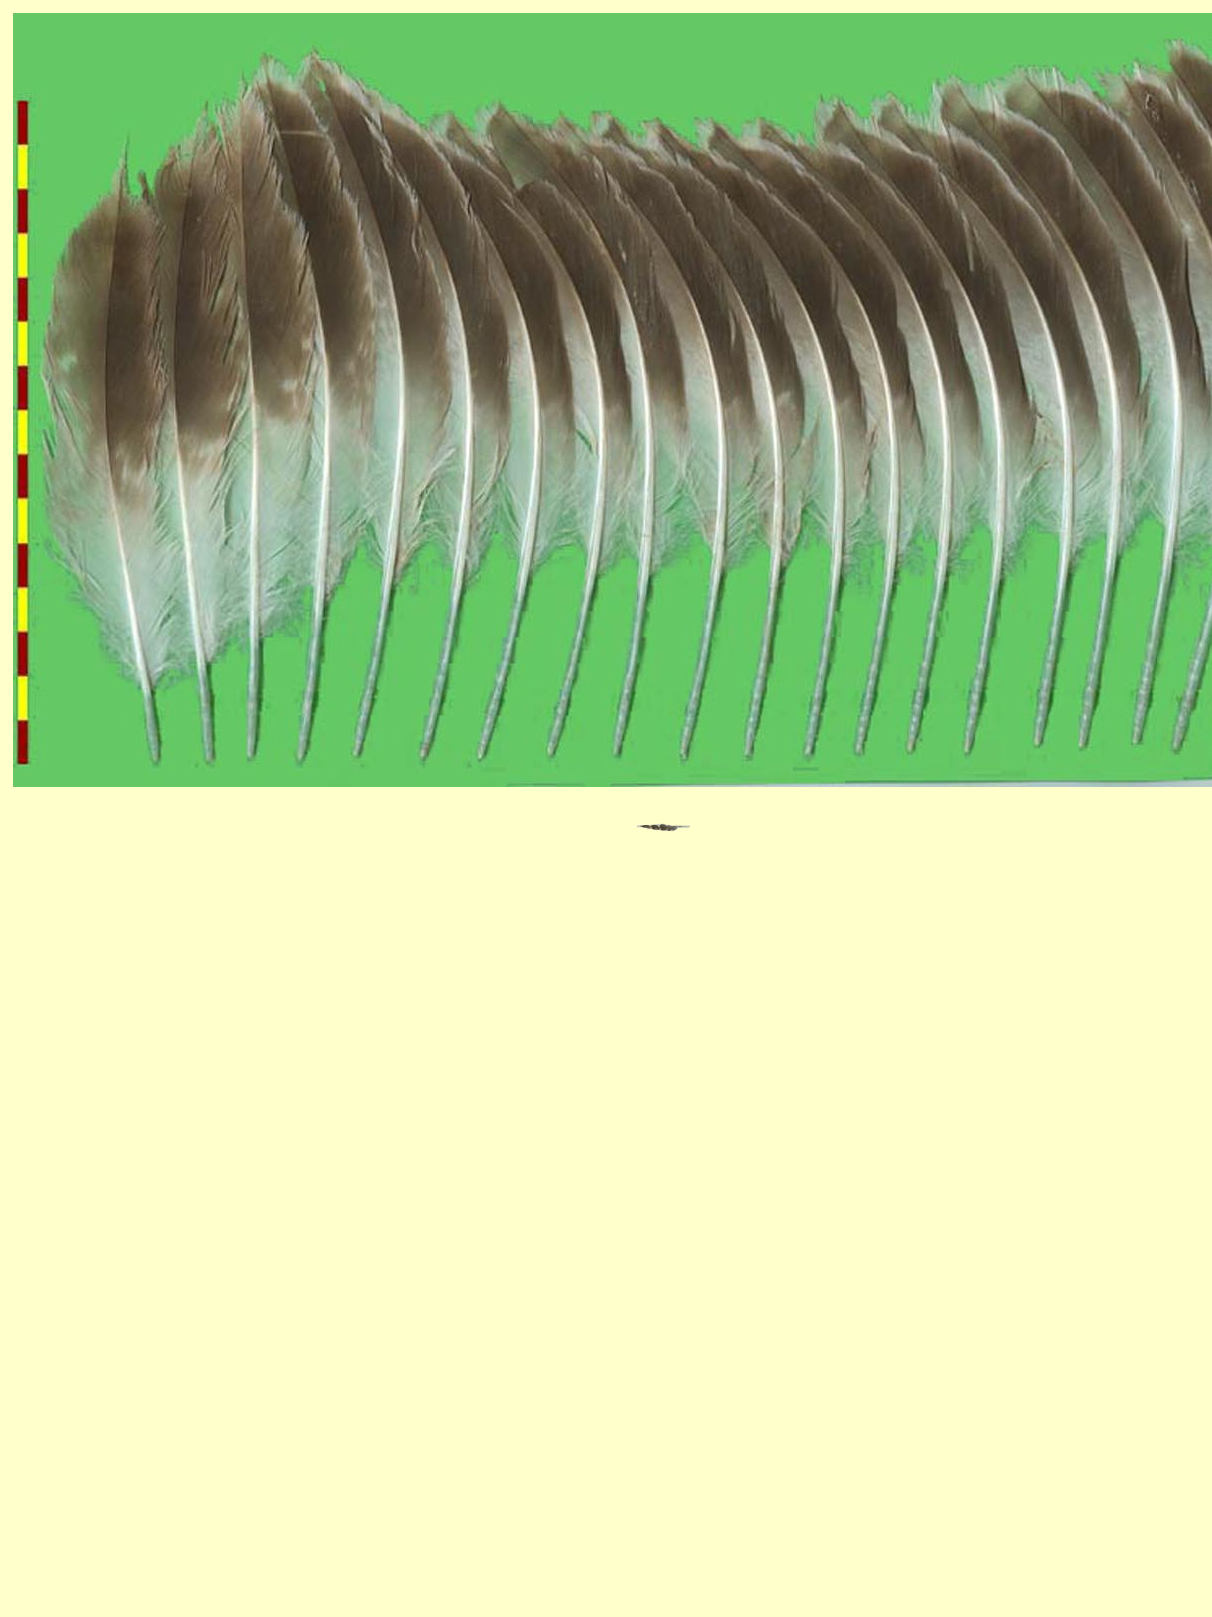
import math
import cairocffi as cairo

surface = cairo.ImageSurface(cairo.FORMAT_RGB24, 1212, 1617)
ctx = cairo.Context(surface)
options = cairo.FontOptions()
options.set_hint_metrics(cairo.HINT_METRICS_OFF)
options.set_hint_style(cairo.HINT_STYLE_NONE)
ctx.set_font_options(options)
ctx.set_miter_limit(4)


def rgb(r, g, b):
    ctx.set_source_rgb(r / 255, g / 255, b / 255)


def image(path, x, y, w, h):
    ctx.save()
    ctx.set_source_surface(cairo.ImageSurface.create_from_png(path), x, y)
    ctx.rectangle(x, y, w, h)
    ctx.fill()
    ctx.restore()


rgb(255, 255, 204)
ctx.paint()
image('image0.png', 13, 13, 1199, 774)
image('image1.png', 636, 823, 54, 9)
surface.write_to_png('render.png')
